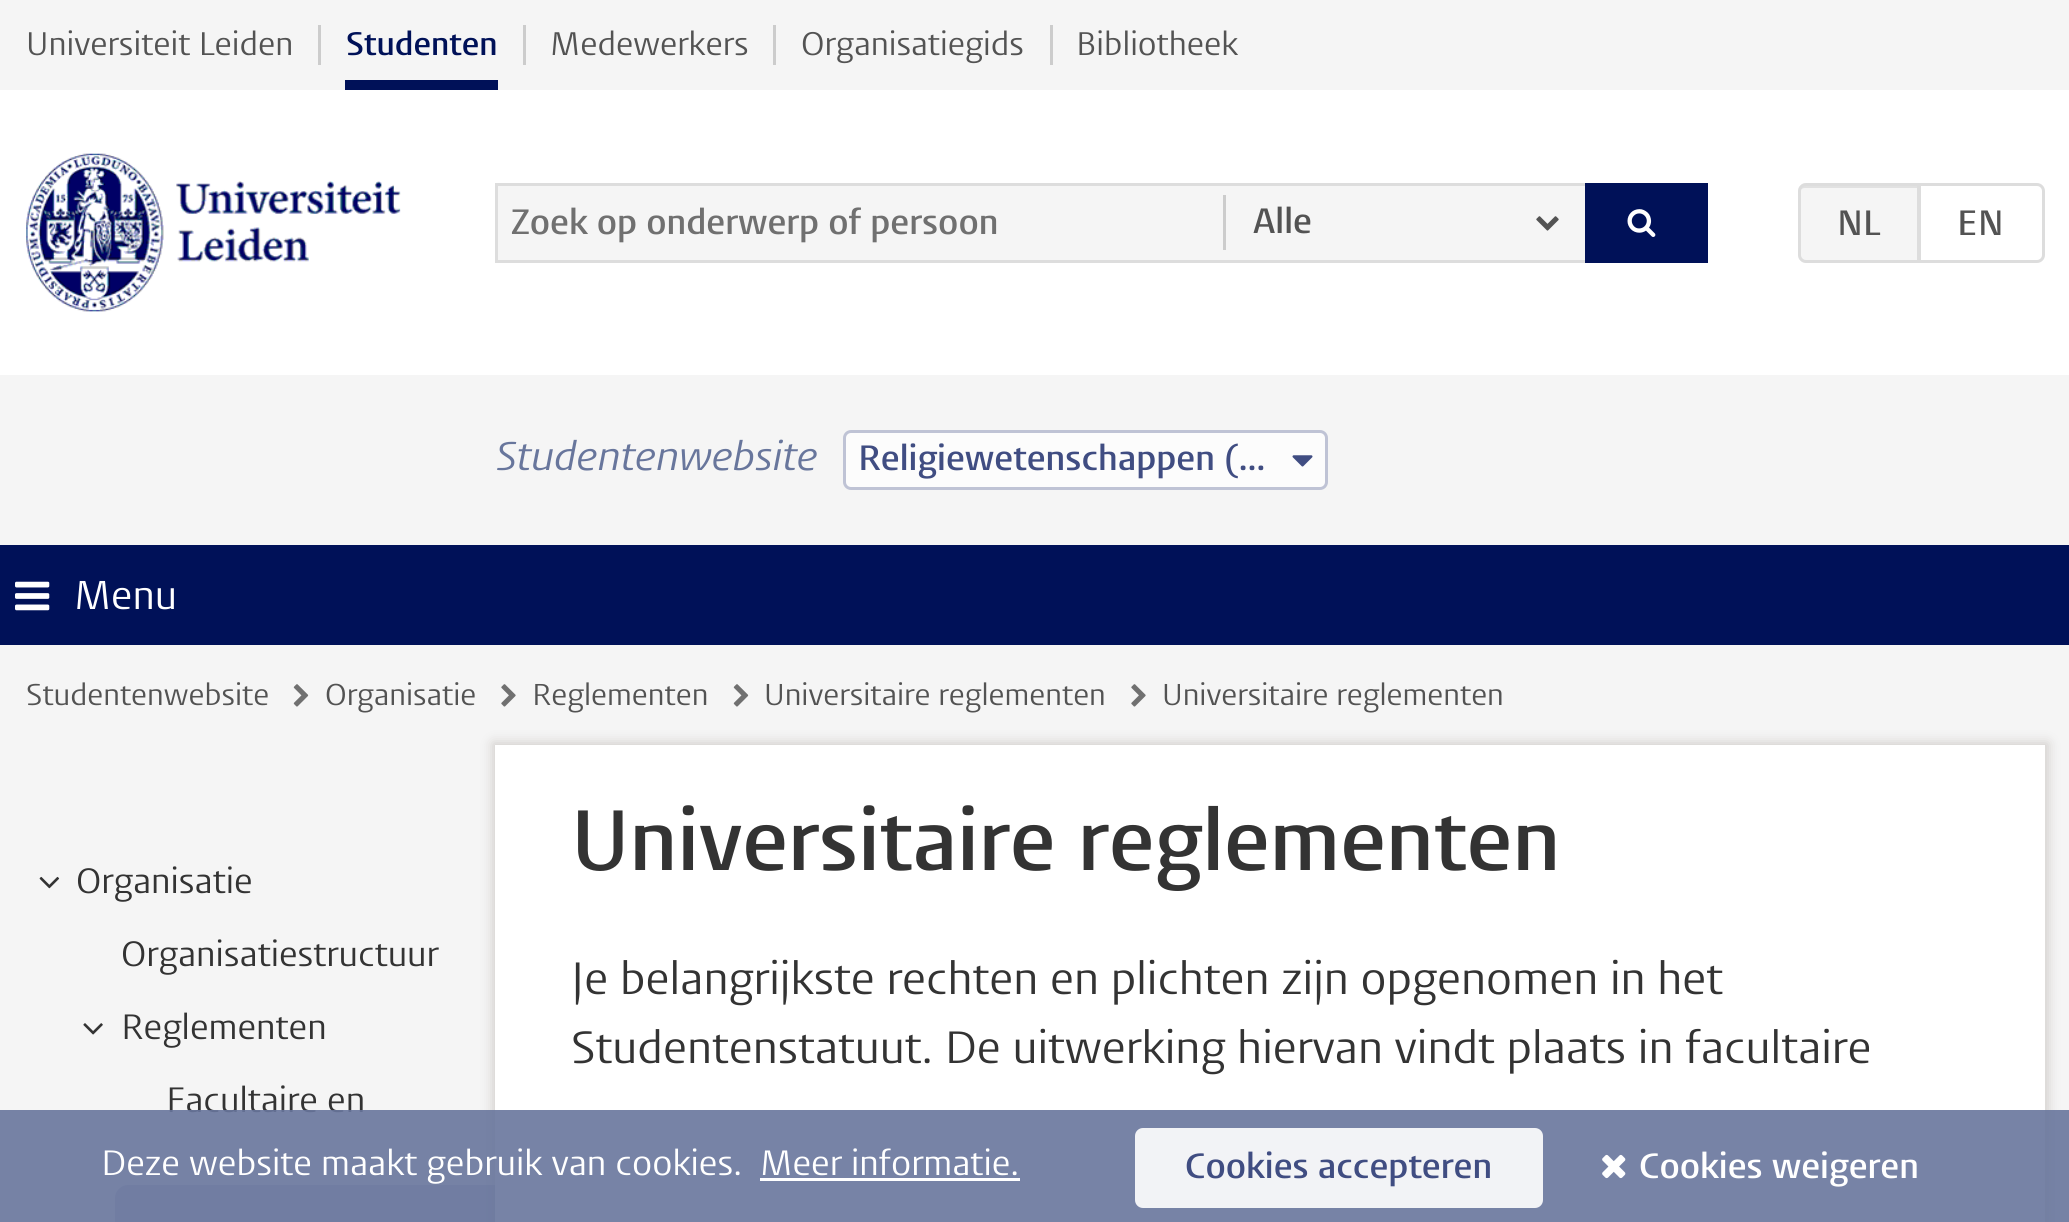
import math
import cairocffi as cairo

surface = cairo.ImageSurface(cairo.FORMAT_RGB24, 2069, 1222)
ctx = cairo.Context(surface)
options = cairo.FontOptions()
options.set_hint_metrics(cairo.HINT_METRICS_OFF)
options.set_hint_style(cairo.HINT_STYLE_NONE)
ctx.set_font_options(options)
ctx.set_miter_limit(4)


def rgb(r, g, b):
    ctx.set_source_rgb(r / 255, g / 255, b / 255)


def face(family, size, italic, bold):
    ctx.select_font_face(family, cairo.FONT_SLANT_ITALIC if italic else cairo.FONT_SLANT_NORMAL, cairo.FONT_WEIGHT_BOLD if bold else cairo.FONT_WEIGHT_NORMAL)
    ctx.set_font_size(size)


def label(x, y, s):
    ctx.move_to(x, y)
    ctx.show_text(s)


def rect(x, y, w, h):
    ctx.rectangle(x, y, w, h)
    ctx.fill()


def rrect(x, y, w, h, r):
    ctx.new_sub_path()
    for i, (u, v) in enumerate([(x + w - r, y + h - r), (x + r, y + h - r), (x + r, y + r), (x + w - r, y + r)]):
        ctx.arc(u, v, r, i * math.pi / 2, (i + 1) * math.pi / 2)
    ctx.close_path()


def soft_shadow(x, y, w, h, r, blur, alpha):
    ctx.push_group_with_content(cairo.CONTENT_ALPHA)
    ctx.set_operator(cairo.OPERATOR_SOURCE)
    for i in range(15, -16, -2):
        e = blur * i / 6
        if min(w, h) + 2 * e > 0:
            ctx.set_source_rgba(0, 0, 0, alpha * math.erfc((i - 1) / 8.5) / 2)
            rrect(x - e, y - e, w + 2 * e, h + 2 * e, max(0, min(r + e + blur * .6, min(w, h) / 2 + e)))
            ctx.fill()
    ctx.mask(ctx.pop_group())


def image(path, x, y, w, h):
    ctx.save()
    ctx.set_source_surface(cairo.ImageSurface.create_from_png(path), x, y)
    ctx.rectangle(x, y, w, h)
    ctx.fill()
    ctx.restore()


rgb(245, 245, 245)
ctx.paint()
rgb(255, 255, 255)
rect(0, 90, 2069, 285)
rgb(204, 204, 204)
rect(318, 25, 3, 40)
face('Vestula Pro', 32.5, 0, 0)
rgb(83, 83, 83)
label(26, 55, 'Universiteit Leiden')
rgb(204, 204, 204)
rect(523, 25, 3, 40)
face('Vestula Pro SemiBold', 32.5, 0, 0)
rgb(0, 17, 88)
label(346, 55, 'Studenten')
rect(345, 80, 153, 10)
rgb(204, 204, 204)
rect(773, 25, 3, 40)
face('Vestula Pro', 32.5, 0, 0)
rgb(83, 83, 83)
label(550, 55, 'Medewerkers')
rgb(204, 204, 204)
rect(1050, 25, 3, 40)
rgb(83, 83, 83)
label(801, 55, 'Organisatiegids')
label(1076, 55, 'Bibliotheek')
image('image0.png', 26, 153, 375, 159)
rgb(245, 245, 245)
rect(498, 186, 1087, 74)
rgb(221, 221, 221)
rect(495, 183, 1090, 3)
rect(495, 260, 1090, 3)
rect(495, 183, 3, 80)
face('Vestula Pro SemiBold', 35, 0, 0)
rgb(112, 112, 112)
label(511, 234, 'Zoek op onderwerp of persoon')
rgb(204, 204, 204)
rect(1223, 195, 3, 55)
rgb(83, 83, 83)
label(1253, 233, 'Alle')
image('image1.png', 1536, 216, 23, 15)
rgb(0, 17, 88)
rect(1585, 183, 123, 80)
image('image2.png', 1627, 209, 29, 28)
rgb(245, 245, 245)
ctx.new_path()
ctx.move_to(1806, 183)
ctx.line_to(1920, 183)
ctx.line_to(1920, 263)
ctx.line_to(1806, 263)
ctx.curve_to(1801.5, 263, 1798, 259.5, 1798, 255)
ctx.line_to(1798, 191)
ctx.curve_to(1798, 186.5, 1801.5, 183, 1806, 183)
ctx.close_path()
ctx.fill()
rgb(225, 225, 225)
ctx.new_path()
ctx.move_to(1805, 188)
ctx.line_to(1918, 188)
ctx.line_to(1918, 185)
ctx.line_to(1805, 185)
ctx.curve_to(1802, 185, 1800, 187, 1800, 190)
ctx.line_to(1800, 192)
ctx.curve_to(1800, 190, 1802, 188, 1805, 188)
ctx.close_path()
ctx.fill()
ctx.new_path()
ctx.move_to(1806, 184.5)
ctx.line_to(1918.5, 184.5)
ctx.line_to(1918.5, 261.5)
ctx.line_to(1806, 261.5)
ctx.curve_to(1802.5, 261.5, 1799.5, 258.5, 1799.5, 255)
ctx.line_to(1799.5, 191)
ctx.curve_to(1799.5, 187.5, 1802.5, 184.5, 1806, 184.5)
ctx.close_path()
rgb(221, 221, 221)
ctx.set_line_width(3)
ctx.stroke()
rgb(83, 83, 83)
label(1837, 235, 'NL')
rgb(255, 255, 255)
ctx.new_path()
ctx.move_to(1919.5, 184.5)
ctx.line_to(2037, 184.5)
ctx.curve_to(2040.5, 184.5, 2043.5, 187.5, 2043.5, 191)
ctx.line_to(2043.5, 255)
ctx.curve_to(2043.5, 258.5, 2040.5, 261.5, 2037, 261.5)
ctx.line_to(1919.5, 261.5)
ctx.close_path()
ctx.fill_preserve()
rgb(221, 221, 221)
ctx.stroke()
rgb(83, 83, 83)
label(1957, 235, 'EN')
face('Vestula Pro', 40, 1, 0)
rgb(104, 118, 156)
label(496, 470, 'Studentenwebsite')
rgb(252, 252, 252)
rrect(844.5, 431.5, 482, 57, 6.5)
ctx.fill_preserve()
rgb(191, 195, 213)
ctx.stroke()
face('Vestula Pro SemiBold', 35, 0, 0)
rgb(64, 77, 130)
label(858, 470, 'Religiewetenschappen (…')
image('image3.png', 1292, 455, 21, 12)
rgb(0, 17, 88)
rect(0, 545, 2069, 100)
image('image4.png', 15, 581, 35, 30)
face('Vestula Pro', 40, 0, 0)
rgb(255, 255, 255)
label(74, 609, 'Menu')
face('Vestula Pro', 30, 0, 0)
rgb(83, 83, 83)
label(26, 705, 'Studentenwebsite')
image('image5.png', 293, 684, 16, 23)
label(325, 705, 'Organisatie')
image('image6.png', 501, 684, 15, 23)
label(532, 705, 'Reglementen')
image('image5.png', 733, 684, 16, 23)
label(764, 705, 'Universitaire reglementen')
image('image6.png', 1131, 684, 15, 23)
label(1162, 705, 'Universitaire reglementen')
image('image7.png', 39, 876, 21, 13)
face('Vestula Pro', 35, 0, 0)
rgb(51, 51, 51)
label(76, 893, 'Organisatie')
label(121, 966, 'Organisatiestructuur')
image('image8.png', 83, 1023, 20, 12)
label(121, 1039, 'Reglementen')
label(166, 1112, 'Facultaire en')
rgb(191, 195, 213)
ctx.new_path()
ctx.move_to(128, 1185)
ctx.line_to(495, 1185)
ctx.line_to(495, 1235)
ctx.line_to(128, 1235)
ctx.curve_to(121, 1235, 115, 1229, 115, 1222)
ctx.line_to(115, 1198)
ctx.curve_to(115, 1191, 121, 1185, 128, 1185)
ctx.close_path()
ctx.fill()
rgb(120, 110, 100)
soft_shadow(493, 743, 1555, 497, 0, 6, 0.3)
rgb(255, 255, 255)
rect(495, 745, 1550, 477)
face('Vestula Pro SemiBold', 85, 0, 0)
rgb(51, 51, 51)
label(571, 870, 'Universitaire reglementen')
face('Vestula Pro', 45, 0, 0)
label(571, 994, 'Je belangrijkste rechten en plichten zijn opgenomen in het')
label(571, 1063, 'Studentenstatuut. De uitwerking hiervan vindt plaats in facultaire')
ctx.set_source_rgba(0.408, 0.463, 0.612, 0.9)
rect(0, 1110, 2069, 112)
face('Vestula Pro', 35, 0, 0)
rgb(255, 255, 255)
label(101, 1175, 'Deze website maakt gebruik van cookies.')
label(760, 1175, 'Meer informatie.')
rect(760, 1178, 260, 3)
ctx.set_source_rgba(1, 1, 1, 0.9)
rrect(1135, 1128, 408, 80, 8)
ctx.fill()
face('Vestula Pro SemiBold', 35, 0, 0)
rgb(64, 77, 130)
label(1185, 1178, 'Cookies accepteren')
image('image9.png', 1602, 1154, 24, 25)
rgb(255, 255, 255)
label(1639, 1178, 'Cookies weigeren')
surface.write_to_png('render.png')
